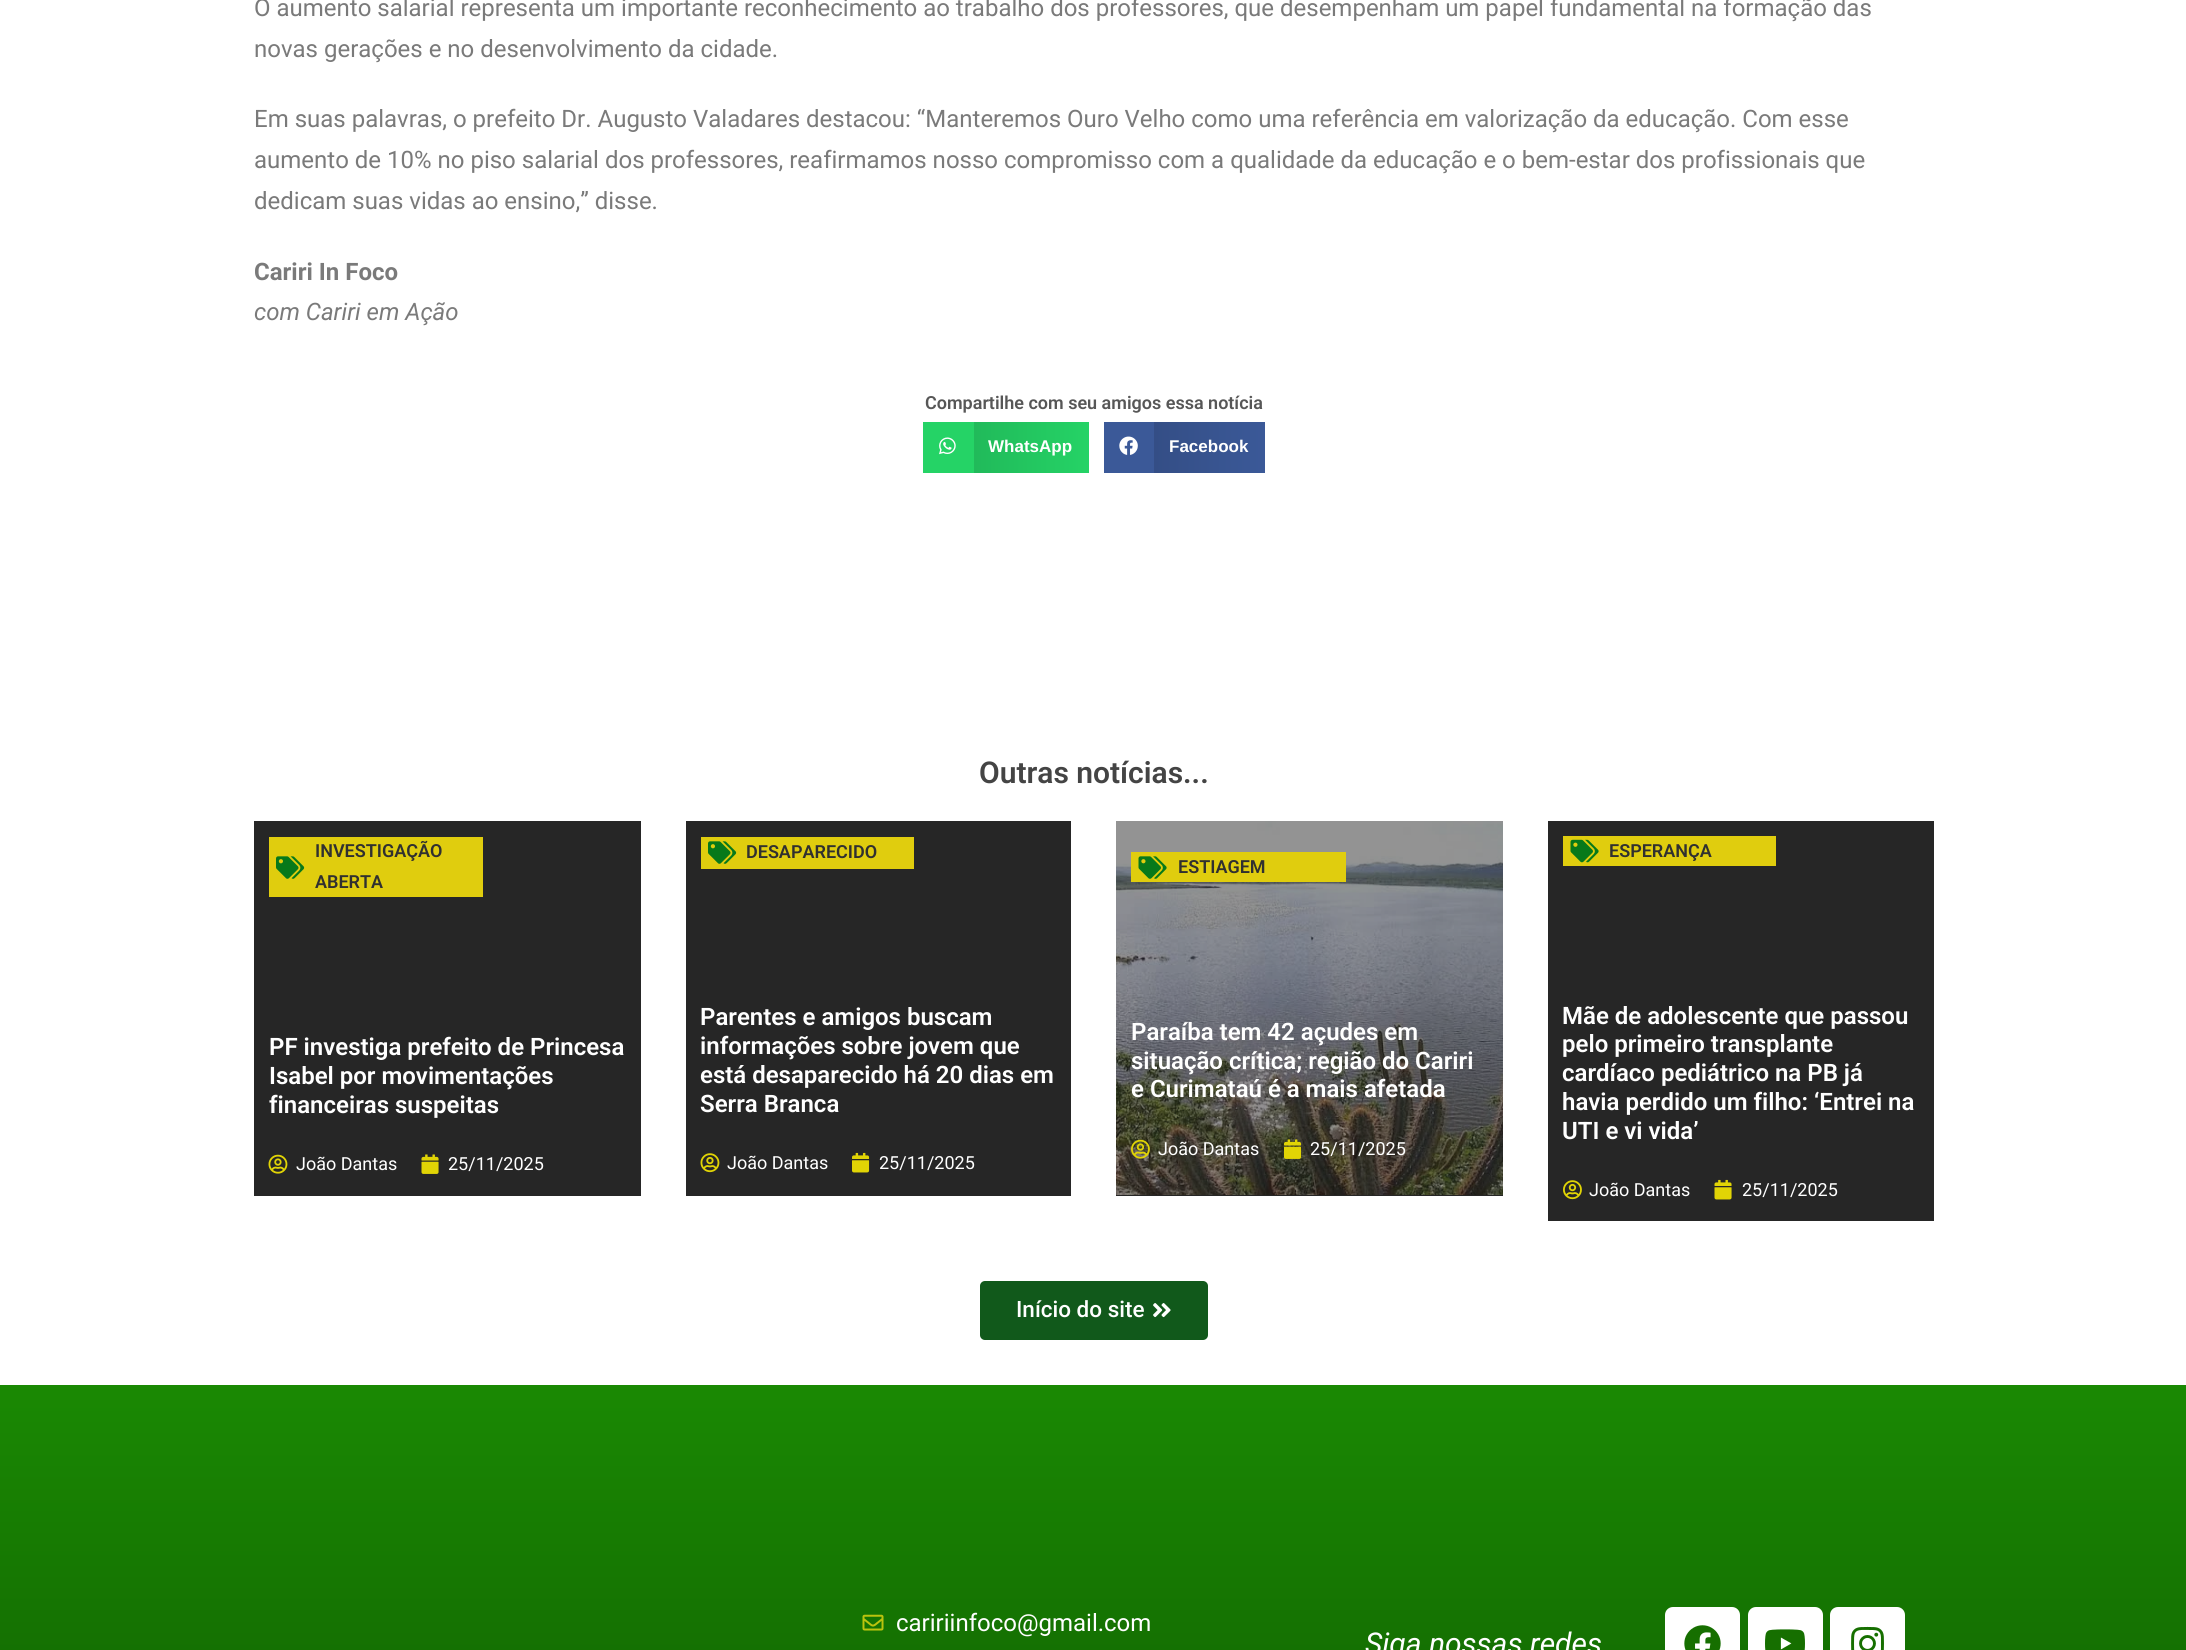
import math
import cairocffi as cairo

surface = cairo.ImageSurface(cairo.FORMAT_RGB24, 2186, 1650)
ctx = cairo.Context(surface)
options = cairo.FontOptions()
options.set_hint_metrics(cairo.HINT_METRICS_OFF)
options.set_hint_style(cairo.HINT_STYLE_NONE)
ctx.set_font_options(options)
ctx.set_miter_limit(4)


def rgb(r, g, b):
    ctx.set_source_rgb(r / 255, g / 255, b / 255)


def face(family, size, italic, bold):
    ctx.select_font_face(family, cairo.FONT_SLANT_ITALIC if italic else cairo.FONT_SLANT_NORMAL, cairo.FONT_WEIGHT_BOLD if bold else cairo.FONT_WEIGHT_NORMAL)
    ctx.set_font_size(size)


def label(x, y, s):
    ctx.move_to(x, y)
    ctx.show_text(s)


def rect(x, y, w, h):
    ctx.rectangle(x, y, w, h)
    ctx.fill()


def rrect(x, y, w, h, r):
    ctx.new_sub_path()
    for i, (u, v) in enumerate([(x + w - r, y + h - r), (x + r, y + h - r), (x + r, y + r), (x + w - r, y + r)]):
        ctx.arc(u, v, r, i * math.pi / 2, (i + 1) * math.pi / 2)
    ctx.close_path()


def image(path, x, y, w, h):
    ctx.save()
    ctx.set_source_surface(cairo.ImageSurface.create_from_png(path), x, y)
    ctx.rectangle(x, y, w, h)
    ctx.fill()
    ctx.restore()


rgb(255, 255, 255)
ctx.paint()
face('Roboto', 24, 0, 0)
rgb(122, 122, 122)
label(254, 16, 'O aumento salarial representa um importante reconhecimento ao trabalho dos professores, que desempenham um papel fundamental na formação das')
label(254, 57, 'novas gerações e no desenvolvimento da cidade.')
label(254, 127, 'Em suas palavras, o prefeito Dr. Augusto Valadares destacou: “Manteremos Ouro Velho como uma referência em valorização da educação. Com esse')
label(254, 168, 'aumento de 10% no piso salarial dos professores, reafirmamos nosso compromisso com a qualidade da educação e o bem-estar dos profissionais que')
label(254, 209, 'dedicam suas vidas ao ensino,” disse.')
face('Roboto', 24, 0, 1)
label(254, 280, 'Cariri In Foco')
face('Roboto', 24, 1, 0)
label(254, 320, 'com Cariri em Ação')
face('Roboto SemiBold', 18, 0, 0)
rgb(87, 87, 87)
label(925, 409, 'Compartilhe com seu amigos essa notícia')
rgb(37, 211, 102)
rect(923, 422, 51, 51)
image('image0.png', 939, 437, 17, 18)
gradient = cairo.LinearGradient(974, 447, 1089, 447)
gradient.add_color_stop_rgba(0, 0.129, 0.729, 0.353, 1)
gradient.add_color_stop_rgba(1, 0.145, 0.827, 0.4, 1)
ctx.set_source(gradient)
rect(974, 422, 115, 51)
face('Liberation Sans', 17, 0, 1)
rgb(255, 255, 255)
label(988, 452, 'WhatsApp')
rgb(59, 89, 152)
rect(1104, 422, 50, 51)
image('image1.png', 1119, 436, 19, 19)
gradient = cairo.LinearGradient(1154, 447, 1265, 447)
gradient.add_color_stop_rgba(0, 0.204, 0.306, 0.525, 1)
gradient.add_color_stop_rgba(1, 0.231, 0.349, 0.596, 1)
ctx.set_source(gradient)
rect(1154, 422, 111, 51)
rgb(255, 255, 255)
label(1169, 452, 'Facebook')
face('Roboto SemiBold', 30, 0, 0)
rgb(68, 68, 68)
label(979, 783, 'Outras notícias...')
rgb(38, 38, 38)
rect(254, 821, 387, 375)
rgb(224, 205, 14)
rect(269, 837, 214, 60)
image('image2.png', 276, 856, 29, 23)
face('Roboto SemiBold', 18, 0, 0)
rgb(48, 48, 48)
label(315, 857, 'INVESTIGAÇÃO')
label(315, 888, 'ABERTA')
face('Roboto SemiBold', 24, 0, 0)
rgb(255, 255, 255)
label(269, 1055, 'PF investiga prefeito de Princesa')
label(269, 1084, 'Isabel por movimentações')
label(269, 1113, 'financeiras suspeitas')
image('image3.png', 268, 1154, 20, 20)
face('Roboto', 18, 0, 0)
label(296, 1170, 'João Dantas')
image('image4.png', 421, 1154, 18, 20)
label(448, 1170, '25/11/2025')
rgb(38, 38, 38)
rect(686, 821, 385, 375)
rgb(224, 205, 14)
rect(701, 837, 213, 32)
image('image2.png', 708, 841, 29, 23)
face('Roboto SemiBold', 18, 0, 0)
rgb(48, 48, 48)
label(746, 858, 'DESAPARECIDO')
face('Roboto SemiBold', 24, 0, 0)
rgb(255, 255, 255)
label(700, 1025, 'Parentes e amigos buscam')
label(700, 1054, 'informações sobre jovem que')
label(700, 1083, 'está desaparecido há 20 dias em')
label(700, 1112, 'Serra Branca')
image('image5.png', 700, 1153, 20, 20)
face('Roboto', 18, 0, 0)
label(727, 1169, 'João Dantas')
image('image6.png', 852, 1152, 18, 21)
label(879, 1169, '25/11/2025')
rgb(38, 38, 38)
rect(1116, 821, 387, 375)
image('image7.png', 1116, 821, 387, 374)
rgb(224, 205, 14)
rect(1131, 852, 215, 30)
image('image8.png', 1138, 856, 29, 23)
face('Roboto SemiBold', 18, 0, 0)
rgb(48, 48, 48)
label(1178, 873, 'ESTIAGEM')
face('Roboto SemiBold', 24, 0, 0)
rgb(255, 255, 255)
label(1131, 1040, 'Paraíba tem 42 açudes em')
label(1131, 1069, 'situação crítica; região do Cariri')
label(1131, 1097, 'e Curimataú é a mais afetada')
image('image9.png', 1131, 1139, 19, 20)
face('Roboto', 18, 0, 0)
label(1158, 1155, 'João Dantas')
image('image10.png', 1284, 1139, 18, 20)
label(1310, 1155, '25/11/2025')
rgb(38, 38, 38)
rect(1548, 821, 386, 400)
rgb(224, 205, 14)
rect(1563, 836, 213, 30)
image('image11.png', 1570, 839, 29, 24)
face('Roboto SemiBold', 18, 0, 0)
rgb(48, 48, 48)
label(1609, 857, 'ESPERANÇA')
face('Roboto SemiBold', 24, 0, 0)
rgb(255, 255, 255)
label(1562, 1024, 'Mãe de adolescente que passou')
label(1562, 1052, 'pelo primeiro transplante')
label(1562, 1081, 'cardíaco pediátrico na PB já')
label(1562, 1110, 'havia perdido um filho: ‘Entrei na')
label(1562, 1139, 'UTI e vi vida’')
image('image12.png', 1563, 1180, 19, 20)
face('Roboto', 18, 0, 0)
label(1589, 1196, 'João Dantas')
image('image13.png', 1714, 1179, 18, 21)
label(1742, 1196, '25/11/2025')
rgb(17, 89, 27)
rrect(980, 1281, 228, 59, 5)
ctx.fill()
face('Roboto Medium', 22.5, 0, 0)
rgb(255, 255, 255)
label(1016, 1317, 'Início do site')
image('image14.png', 1153, 1303, 18, 15)
gradient = cairo.LinearGradient(1094, 1384, 1094, 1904)
gradient.add_color_stop_rgba(0, 0.102, 0.537, 0.012, 1)
gradient.add_color_stop_rgba(1, 0.059, 0.353, 0, 1)
ctx.set_source(gradient)
rect(0, 1385, 2186, 265)
image('image15.png', 862, 1614, 22, 17)
face('Roboto', 24, 0, 0)
rgb(255, 255, 255)
label(896, 1631, 'caririinfoco@gmail.com')
face('Roboto', 30, 1, 0)
label(1365, 1654, 'Siga nossas redes')
rrect(1665, 1607, 75, 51, 8)
ctx.fill()
image('image16.png', 1684, 1625, 37, 25)
rrect(1748, 1607, 75, 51, 8)
ctx.fill()
image('image17.png', 1765, 1629, 40, 21)
rrect(1830, 1607, 75, 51, 8)
ctx.fill()
image('image18.png', 1851, 1626, 33, 24)
surface.write_to_png('render.png')
